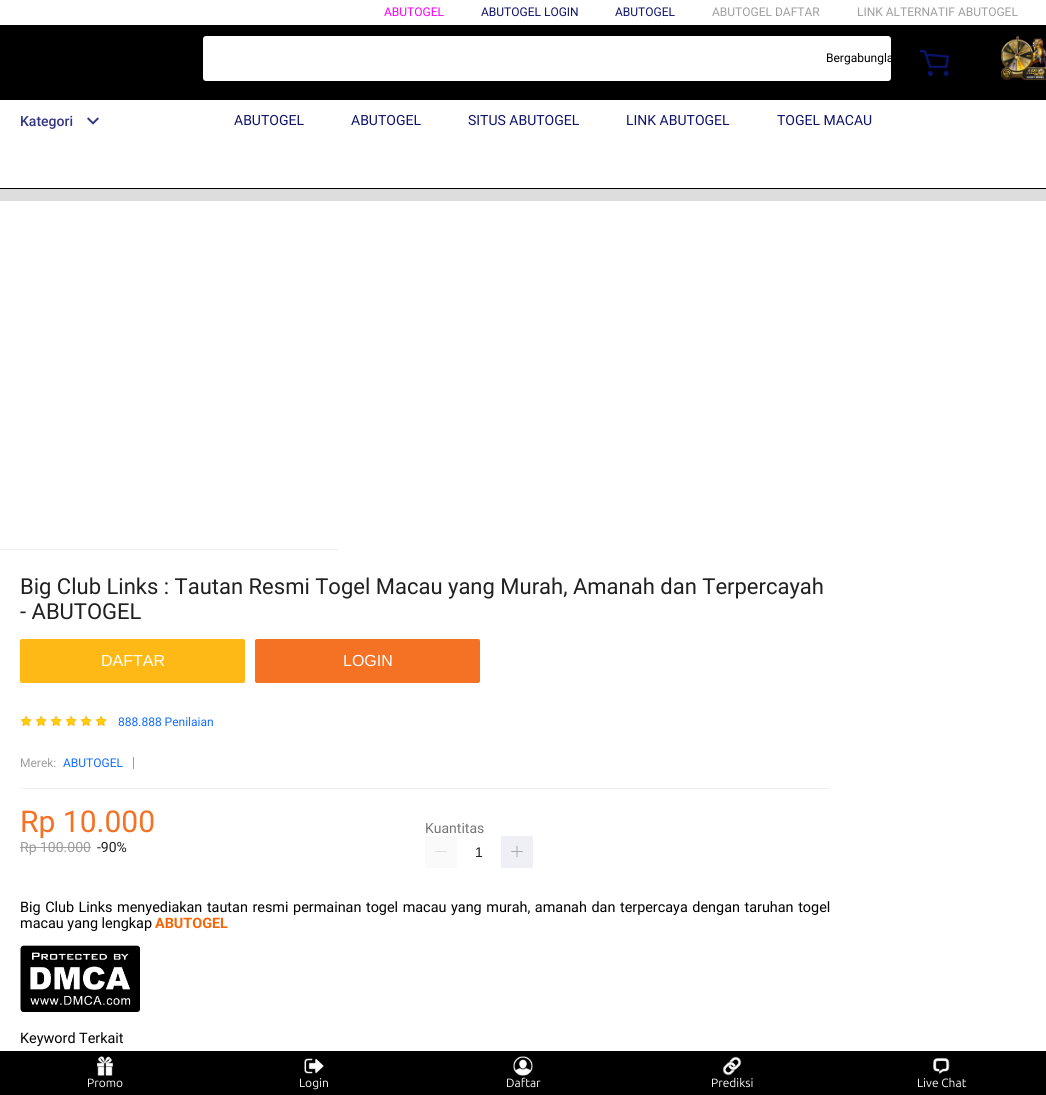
import math
import cairocffi as cairo

surface = cairo.ImageSurface(cairo.FORMAT_RGB24, 1046, 1095)
ctx = cairo.Context(surface)
options = cairo.FontOptions()
options.set_hint_metrics(cairo.HINT_METRICS_OFF)
options.set_hint_style(cairo.HINT_STYLE_NONE)
ctx.set_font_options(options)
ctx.set_miter_limit(4)


def rgb(r, g, b):
    ctx.set_source_rgb(r / 255, g / 255, b / 255)


def face(family, size, italic, bold):
    ctx.select_font_face(family, cairo.FONT_SLANT_ITALIC if italic else cairo.FONT_SLANT_NORMAL, cairo.FONT_WEIGHT_BOLD if bold else cairo.FONT_WEIGHT_NORMAL)
    ctx.set_font_size(size)


def label(x, y, s):
    ctx.move_to(x, y)
    ctx.show_text(s)


def tracked(x, y, s, letter, word):
    ctx.move_to(x, y)
    for ch in s:
        ctx.show_text(ch)
        ctx.rel_move_to(letter + word * (ch == ' '), 0)


def rect(x, y, w, h):
    ctx.rectangle(x, y, w, h)
    ctx.fill()


def rrect(x, y, w, h, r):
    ctx.new_sub_path()
    for i, (u, v) in enumerate([(x + w - r, y + h - r), (x + r, y + h - r), (x + r, y + r), (x + w - r, y + r)]):
        ctx.arc(u, v, r, i * math.pi / 2, (i + 1) * math.pi / 2)
    ctx.close_path()


def image(path, x, y, w, h):
    ctx.save()
    ctx.set_source_surface(cairo.ImageSurface.create_from_png(path), x, y)
    ctx.rectangle(x, y, w, h)
    ctx.fill()
    ctx.restore()


rgb(221, 221, 221)
ctx.paint()
rgb(255, 255, 255)
rect(0, 0, 1046, 188)
rgb(0, 0, 0)
rect(0, 188, 1046, 1)
face('Roboto', 12, 0, 0)
rgb(255, 0, 255)
label(384, 16, 'ABUTOGEL')
rgb(15, 19, 109)
label(481, 16, 'ABUTOGEL LOGIN')
label(615, 16, 'ABUTOGEL')
rgb(158, 158, 158)
label(712, 16, 'ABUTOGEL DAFTAR')
label(857, 16, 'LINK ALTERNATIF ABUTOGEL')
rgb(0, 0, 0)
rect(0, 25, 1046, 75)
rgb(255, 255, 255)
rrect(203, 36, 688, 45, 3)
ctx.fill()
ctx.save()
ctx.rectangle(203, 36, 688, 45)
ctx.clip()
rgb(0, 0, 0)
label(826, 62, 'Bergabungla')
ctx.restore()
image('image0.png', 920, 50, 29, 26)
image('image1.png', 1000, 36, 46, 45)
face('Roboto Medium', 14, 0, 0)
rgb(51, 54, 131)
label(20, 126, 'Kategori')
image('image2.png', 87, 117, 12, 8)
face('Roboto', 14, 0, 0)
rgb(15, 19, 109)
label(234, 125, 'ABUTOGEL')
label(351, 125, 'ABUTOGEL')
label(468, 125, 'SITUS ABUTOGEL')
label(626, 125, 'LINK ABUTOGEL')
label(777, 125, 'TOGEL MACAU')
rgb(255, 255, 255)
rect(0, 201, 1046, 850)
rgb(239, 240, 245)
rect(0, 549, 338, 1)
face('Roboto', 22, 0, 0)
rgb(33, 33, 33)
label(20, 594, 'Big Club Links : Tautan Resmi Togel Macau yang Murah, Amanah dan Terpercayah')
label(20, 619, '- ABUTOGEL')
rgb(255, 185, 22)
rrect(20, 639, 225, 44, 2)
ctx.fill()
face('Liberation Sans', 16, 0, 0)
rgb(255, 255, 255)
label(101, 666, 'DAFTAR')
rgb(245, 114, 36)
rrect(255, 639, 225, 44, 2)
ctx.fill()
rgb(255, 255, 255)
label(343, 666, 'LOGIN')
image('image3.png', 20, 715, 12, 12)
image('image3.png', 35, 715, 12, 12)
image('image3.png', 50, 715, 12, 12)
image('image3.png', 65, 715, 12, 12)
image('image3.png', 80, 715, 12, 12)
image('image3.png', 95, 715, 12, 12)
face('Roboto', 12, 0, 0)
rgb(19, 108, 255)
label(118, 726, '888.888 Penilaian')
rgb(239, 240, 245)
rect(20, 788, 810, 1)
rgb(158, 158, 158)
label(20, 767, 'Merek:')
rgb(19, 108, 255)
label(63, 767, 'ABUTOGEL')
rgb(158, 158, 158)
rect(133, 757, 1, 12)
face('Roboto', 30, 0, 0)
rgb(245, 114, 36)
label(20, 832, 'Rp 10.000')
face('Roboto', 14, 0, 0)
rgb(158, 158, 158)
label(20, 852, 'Rp 100.000')
rect(20, 847, 71, 1)
rgb(33, 33, 33)
label(97, 852, '-90%')
rgb(117, 117, 117)
label(425, 833, 'Kuantitas')
rgb(250, 250, 250)
rect(425, 836, 32, 32)
image('image4.png', 435, 851, 12, 1)
rgb(239, 240, 245)
rect(501, 836, 32, 32)
image('image5.png', 511, 845, 12, 13)
face('Liberation Sans', 14, 0, 0)
rgb(33, 33, 33)
label(475, 857, '1')
face('Roboto', 14.4, 0, 0)
rgb(0, 0, 0)
tracked(20, 912, 'Big Club Links menyediakan tautan resmi permainan togel macau yang murah, amanah dan terpercaya dengan taruhan togel', 0, 1)
label(20, 928, 'macau yang lengkap')
face('Roboto', 14.4, 0, 1)
rgb(245, 102, 8)
label(155, 928, 'ABUTOGEL')
image('image6.png', 20, 945, 120, 67)
face('Roboto', 14.4, 0, 0)
rgb(0, 0, 0)
label(20, 1043, 'Keyword Terkait')
rect(0, 1051, 1046, 44)
image('image7.png', 97, 1056, 16, 20)
face('Ubuntu', 12, 0, 0)
rgb(255, 255, 255)
label(87, 1087, 'Promo')
image('image8.png', 304, 1058, 20, 16)
label(299, 1087, 'Login')
image('image9.png', 513, 1056, 20, 20)
label(506, 1087, 'Daftar')
image('image10.png', 722, 1056, 20, 20)
label(711, 1087, 'Prediksi')
image('image11.png', 933, 1057, 17, 17)
label(917, 1087, 'Live Chat')
surface.write_to_png('render.png')
